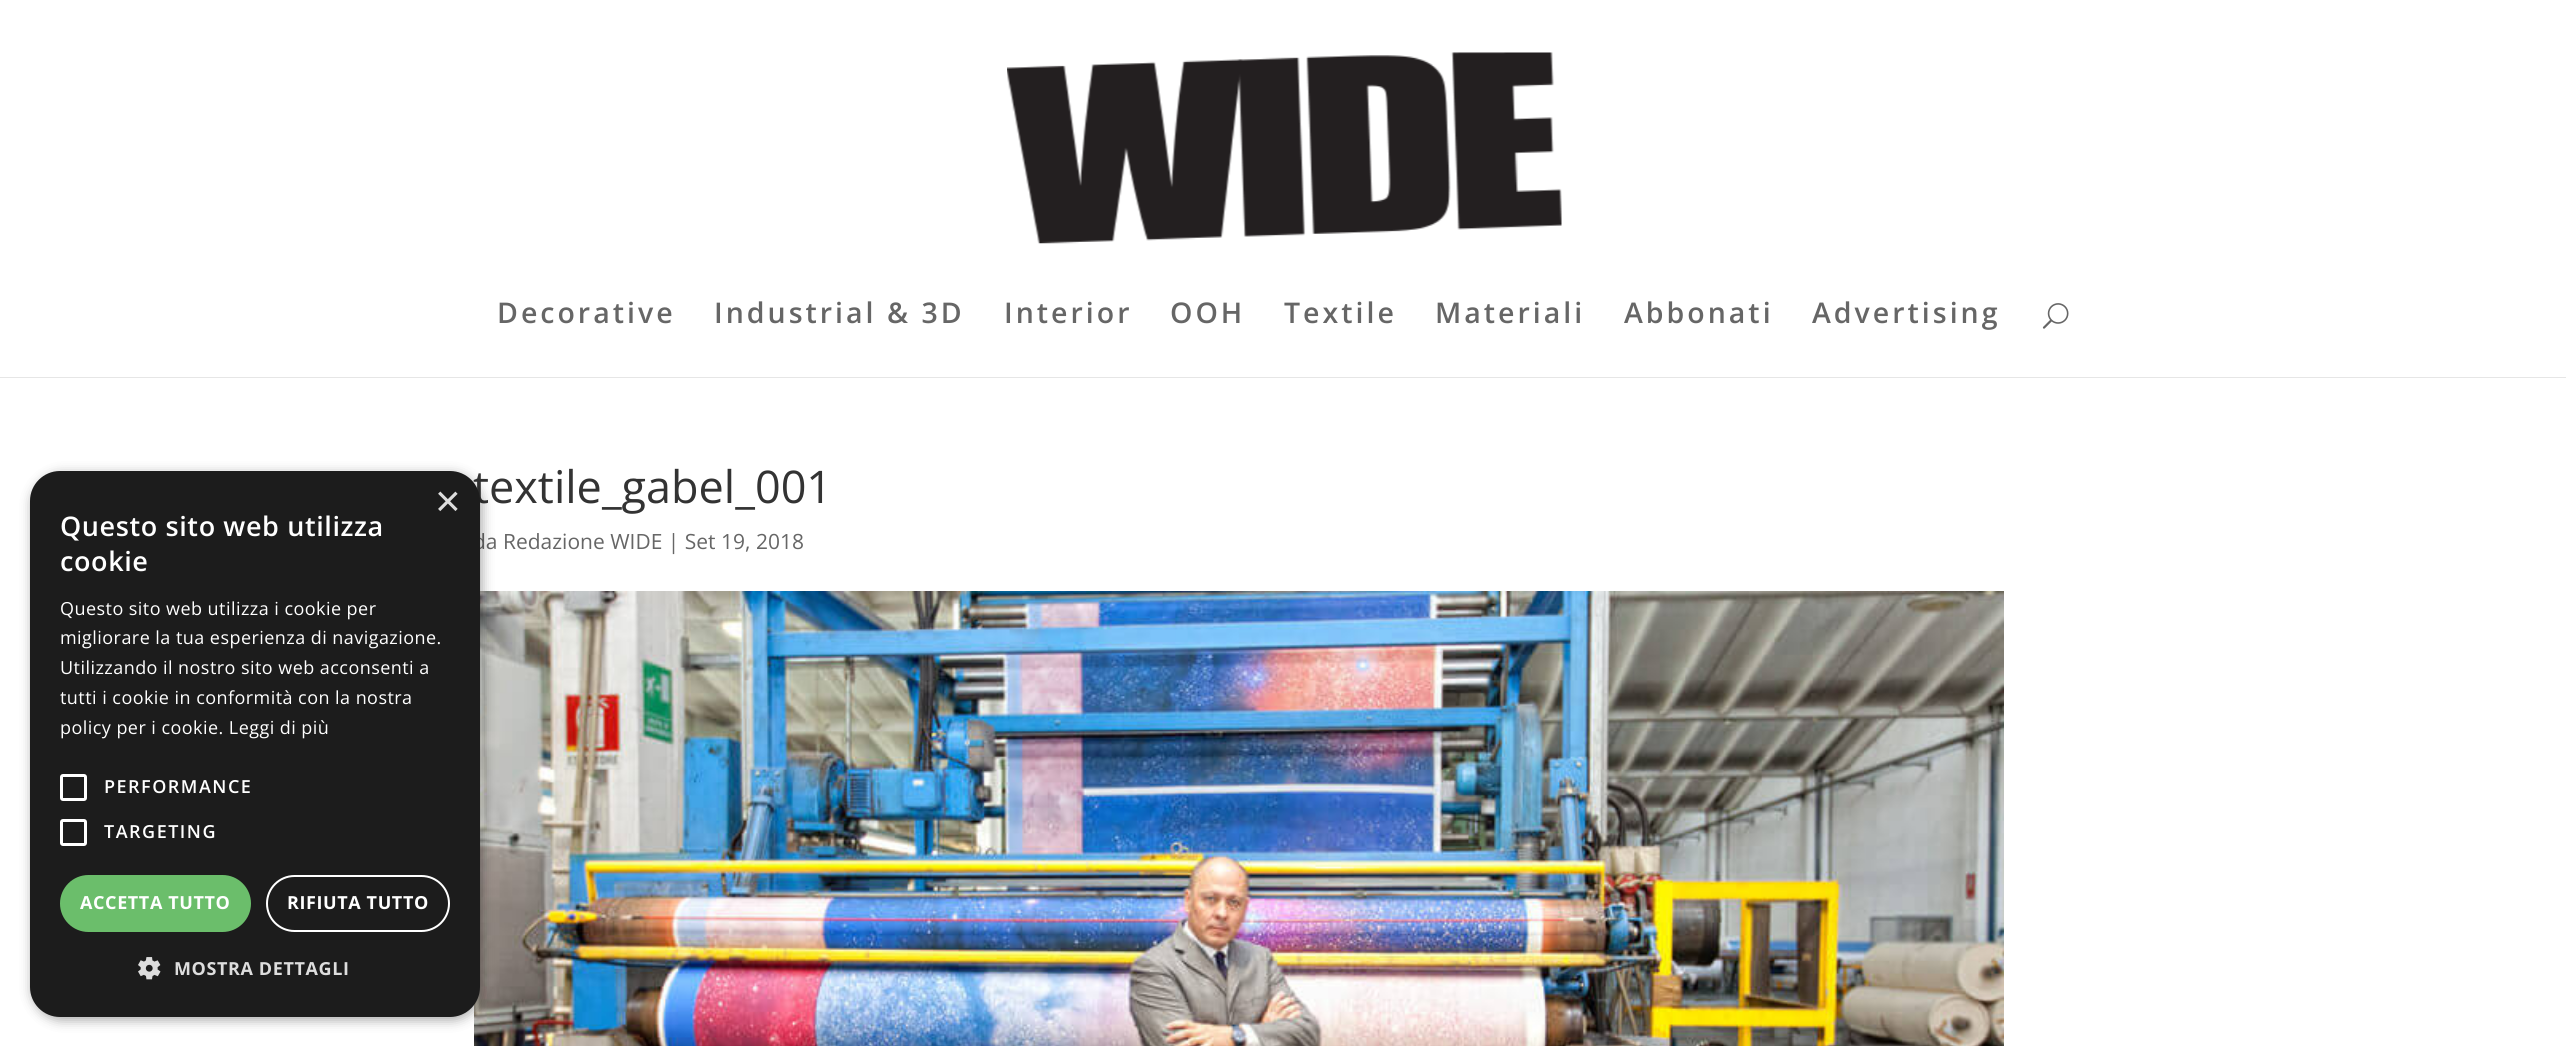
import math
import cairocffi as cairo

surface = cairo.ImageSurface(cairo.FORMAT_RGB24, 2566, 1046)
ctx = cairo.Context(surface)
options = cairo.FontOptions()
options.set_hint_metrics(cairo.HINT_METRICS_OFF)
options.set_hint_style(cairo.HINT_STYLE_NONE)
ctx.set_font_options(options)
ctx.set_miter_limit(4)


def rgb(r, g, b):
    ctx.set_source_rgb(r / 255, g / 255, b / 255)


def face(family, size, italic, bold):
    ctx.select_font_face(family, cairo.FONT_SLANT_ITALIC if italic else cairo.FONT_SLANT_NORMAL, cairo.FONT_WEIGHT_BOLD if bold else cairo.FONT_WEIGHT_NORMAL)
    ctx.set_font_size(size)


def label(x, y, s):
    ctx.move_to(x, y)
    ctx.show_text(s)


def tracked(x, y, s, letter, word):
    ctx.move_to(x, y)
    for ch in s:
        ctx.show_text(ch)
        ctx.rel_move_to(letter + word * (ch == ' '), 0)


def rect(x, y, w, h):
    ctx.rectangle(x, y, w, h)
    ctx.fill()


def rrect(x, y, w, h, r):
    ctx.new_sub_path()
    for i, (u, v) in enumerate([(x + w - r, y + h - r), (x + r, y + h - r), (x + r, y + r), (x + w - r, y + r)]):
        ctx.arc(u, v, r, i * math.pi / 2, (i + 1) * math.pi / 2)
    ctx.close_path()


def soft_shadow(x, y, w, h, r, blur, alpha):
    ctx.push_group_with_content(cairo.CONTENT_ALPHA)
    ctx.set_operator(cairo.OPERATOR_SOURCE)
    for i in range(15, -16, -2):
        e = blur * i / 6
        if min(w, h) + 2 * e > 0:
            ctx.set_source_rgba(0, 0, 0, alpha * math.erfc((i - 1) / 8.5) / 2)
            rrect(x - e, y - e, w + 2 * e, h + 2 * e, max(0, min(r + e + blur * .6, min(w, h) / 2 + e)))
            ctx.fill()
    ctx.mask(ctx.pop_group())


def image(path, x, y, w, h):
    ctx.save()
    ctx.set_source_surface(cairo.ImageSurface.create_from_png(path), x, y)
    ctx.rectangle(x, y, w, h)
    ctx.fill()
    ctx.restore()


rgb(255, 255, 255)
ctx.paint()
rgb(230, 230, 230)
ctx.new_path()
ctx.move_to(0, 376)
ctx.line_to(0, 378)
ctx.line_to(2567, 378)
ctx.line_to(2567, 2)
ctx.line_to(2566, 2)
ctx.line_to(2566, 376)
ctx.close_path()
ctx.fill()
rgb(255, 255, 255)
rect(0, 376, 2566, 1)
image('image0.png', 1007, 52, 555, 192)
face('Open Sans SemiBold', 28.5, 0, 0)
rgb(102, 102, 102)
tracked(497, 323, 'Decorative', 3, 0)
tracked(714, 323, 'Industrial & 3D', 3, 0)
tracked(1004, 323, 'Interior', 3, 0)
tracked(1170, 323, 'OOH', 3, 0)
tracked(1284, 323, 'Textile', 3, 0)
tracked(1435, 323, 'Materiali', 3, 0)
tracked(1624, 323, 'Abbonati', 3, 0)
tracked(1812, 323, 'Advertising', 3, 0)
image('image1.png', 2042, 303, 27, 26)
face('Open Sans', 45, 0, 0)
rgb(51, 51, 51)
label(473, 503, 'textile_gabel_001')
face('Open Sans', 21, 0, 0)
rgb(102, 102, 102)
label(473, 549, 'da Redazione WIDE | Set 19, 2018')
image('image2.png', 474, 591, 1530, 455)
rgb(0, 0, 0)
soft_shadow(32, 474, 450, 546, 30, 6, 0.35)
rgb(28, 28, 28)
rrect(30, 471, 450, 546, 30)
ctx.fill()
face('Liberation Sans', 44, 0, 0)
rgb(221, 221, 221)
label(435, 516, '×')
face('Open Sans SemiBold', 27, 0, 0)
rgb(255, 255, 255)
tracked(60, 536, 'Questo sito web utilizza', 0.6, 0)
tracked(60, 571, 'cookie', 0.6, 0)
face('Open Sans', 18, 0, 0)
tracked(60, 615, 'Questo sito web utilizza i cookie per', 0.45, 0)
tracked(60, 644, 'migliorare la tua esperienza di navigazione.', 0.45, 0)
tracked(60, 674, 'Utilizzando il nostro sito web acconsenti a', 0.45, 0)
tracked(60, 704, 'tutti i cookie in conformità con la nostra', 0.45, 0)
tracked(60, 734, 'policy per i cookie. Leggi di più', 0.45, 0)
rrect(61.5, 775.5, 24, 24, 1.5)
ctx.set_line_width(3)
ctx.stroke()
face('Open Sans SemiBold', 18, 0, 0)
tracked(104, 793, 'PERFORMANCE', 1.5, 0)
rrect(61.5, 820.5, 24, 24, 1.5)
ctx.stroke()
tracked(104, 838, 'TARGETING', 1.5, 0)
rgb(107, 190, 107)
rrect(60, 875, 191, 57, 28.5)
ctx.fill()
face('Open Sans', 18, 0, 1)
rgb(255, 255, 255)
tracked(80, 909, 'ACCETTA TUTTO', 0.6, 0)
rrect(267, 876, 182, 55, 27.5)
ctx.set_line_width(2)
ctx.stroke()
tracked(287, 909, 'RIFIUTA TUTTO', 0.6, 0)
image('image3.png', 138, 957, 23, 23)
rgb(221, 221, 221)
tracked(174, 975, 'MOSTRA DETTAGLI', 0.6, 0)
surface.write_to_png('render.png')
